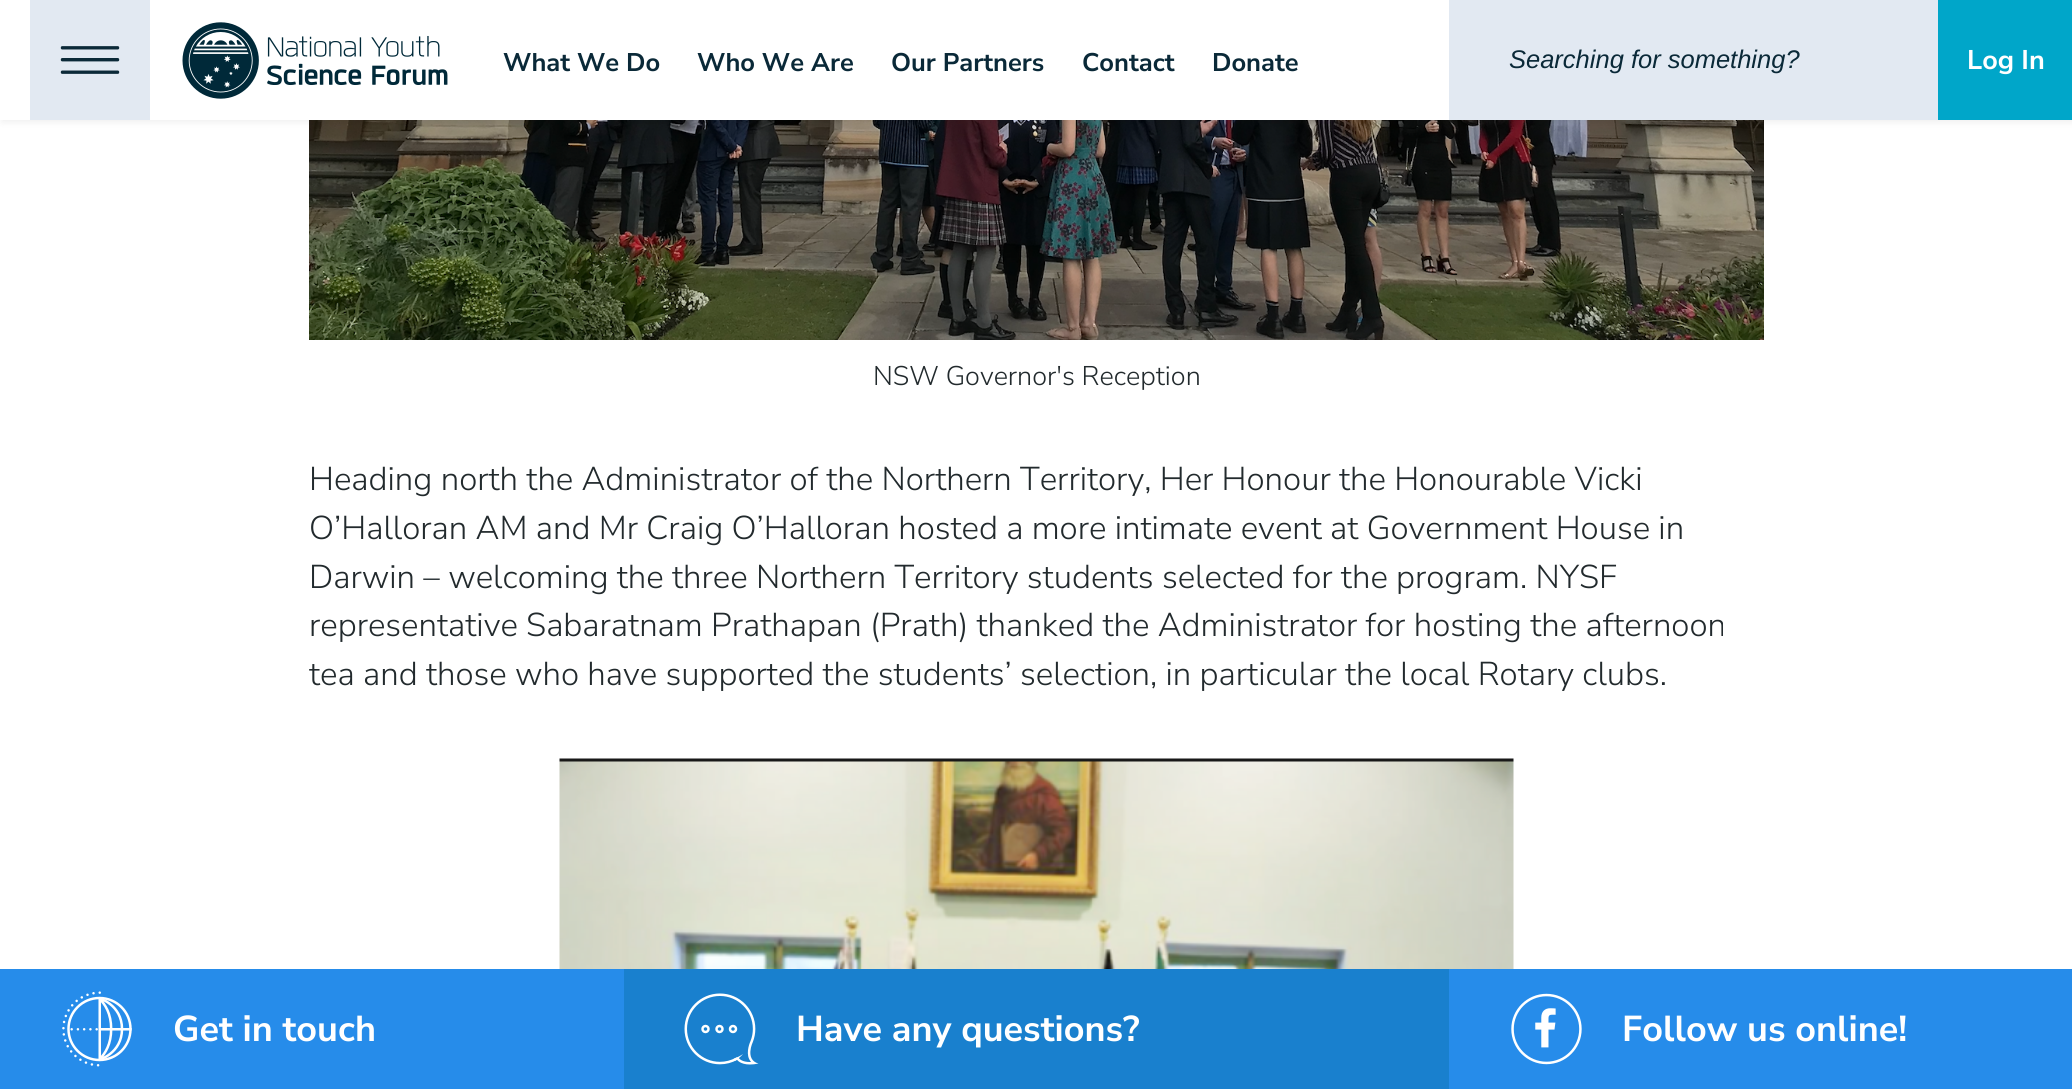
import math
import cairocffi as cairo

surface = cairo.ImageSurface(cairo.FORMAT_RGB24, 2072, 1089)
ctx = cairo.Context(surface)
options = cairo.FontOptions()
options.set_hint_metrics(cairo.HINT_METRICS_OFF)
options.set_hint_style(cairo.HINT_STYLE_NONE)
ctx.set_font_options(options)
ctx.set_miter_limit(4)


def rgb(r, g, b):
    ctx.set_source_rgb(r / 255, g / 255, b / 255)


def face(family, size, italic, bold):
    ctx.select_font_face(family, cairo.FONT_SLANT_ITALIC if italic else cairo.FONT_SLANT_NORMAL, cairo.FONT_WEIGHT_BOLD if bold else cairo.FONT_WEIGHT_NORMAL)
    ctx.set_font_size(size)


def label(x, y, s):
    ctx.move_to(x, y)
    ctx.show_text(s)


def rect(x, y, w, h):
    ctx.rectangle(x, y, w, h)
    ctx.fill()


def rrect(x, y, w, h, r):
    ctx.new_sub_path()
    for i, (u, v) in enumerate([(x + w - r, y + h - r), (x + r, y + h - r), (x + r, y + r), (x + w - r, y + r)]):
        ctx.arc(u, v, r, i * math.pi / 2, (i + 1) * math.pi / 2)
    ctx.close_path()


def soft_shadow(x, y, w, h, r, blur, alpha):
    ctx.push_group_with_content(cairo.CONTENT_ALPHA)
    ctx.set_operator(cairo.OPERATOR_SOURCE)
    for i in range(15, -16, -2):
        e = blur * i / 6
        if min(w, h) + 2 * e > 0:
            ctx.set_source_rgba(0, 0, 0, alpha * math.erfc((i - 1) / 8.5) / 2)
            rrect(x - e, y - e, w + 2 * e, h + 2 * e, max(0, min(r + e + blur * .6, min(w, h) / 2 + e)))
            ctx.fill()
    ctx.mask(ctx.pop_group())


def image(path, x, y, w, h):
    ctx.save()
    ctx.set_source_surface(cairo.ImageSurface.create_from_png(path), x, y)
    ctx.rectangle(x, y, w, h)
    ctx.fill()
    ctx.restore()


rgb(255, 255, 255)
ctx.paint()
image('image2.png', 309, 120, 1455, 220)
rgb(0, 0, 0)
soft_shadow(2, 2, 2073, 120, 0, 4, 0.07)
rgb(255, 255, 255)
rect(0, 0, 1449, 120)
rgb(226, 233, 242)
rect(30, 0, 120, 120)
image('image0.png', 60, 46, 60, 28)
image('image1.png', 182, 22, 266, 77)
face('Nunito Sans', 25.5, 0, 1)
rgb(10, 41, 56)
label(503, 71, 'What We Do')
label(697, 71, 'Who We Are')
label(891, 71, 'Our Partners')
label(1082, 71, 'Contact')
label(1212, 71, 'Donate')
rgb(226, 233, 242)
rect(1449, 0, 489, 120)
face('Liberation Sans', 25.5, 1, 0)
rgb(10, 41, 56)
label(1509, 68, 'Searching for something?')
rgb(0, 166, 201)
rect(1938, 0, 134, 120)
face('Nunito Sans', 27, 0, 1)
rgb(255, 255, 255)
label(1967, 69, 'Log In')
face('Nunito Sans Light', 27, 0, 0)
rgb(34, 42, 45)
label(873, 385, 'NSW Governor\'s Reception')
face('Nunito Sans Light', 33, 0, 0)
label(309, 490, 'Heading north the Administrator of the Northern Territory, Her Honour the Honourable Vicki')
label(309, 539, 'O’Halloran AM and Mr Craig O’Halloran hosted a more intimate event at Government House in')
label(309, 588, 'Darwin – welcoming the three Northern Territory students selected for the program. NYSF')
label(309, 636, 'representative Sabaratnam Prathapan (Prath) thanked the Administrator for hosting the afternoon')
label(309, 685, 'tea and those who have supported the students’ selection, in particular the local Rotary clubs.')
image('image3.png', 559, 758, 955, 211)
rgb(38, 140, 234)
rect(0, 969, 624, 120)
image('image4.png', 62, 991, 70, 76)
face('Nunito Sans', 36, 0, 1)
rgb(255, 255, 255)
label(173, 1041, 'Get in touch')
rgb(25, 128, 206)
rect(624, 969, 825, 120)
image('image5.png', 684, 993, 75, 72)
rgb(255, 255, 255)
label(796, 1041, 'Have any questions?')
rgb(38, 140, 234)
rect(1449, 969, 623, 120)
image('image6.png', 1511, 993, 71, 72)
rgb(255, 255, 255)
label(1622, 1041, 'Follow us online!')
surface.write_to_png('render.png')
